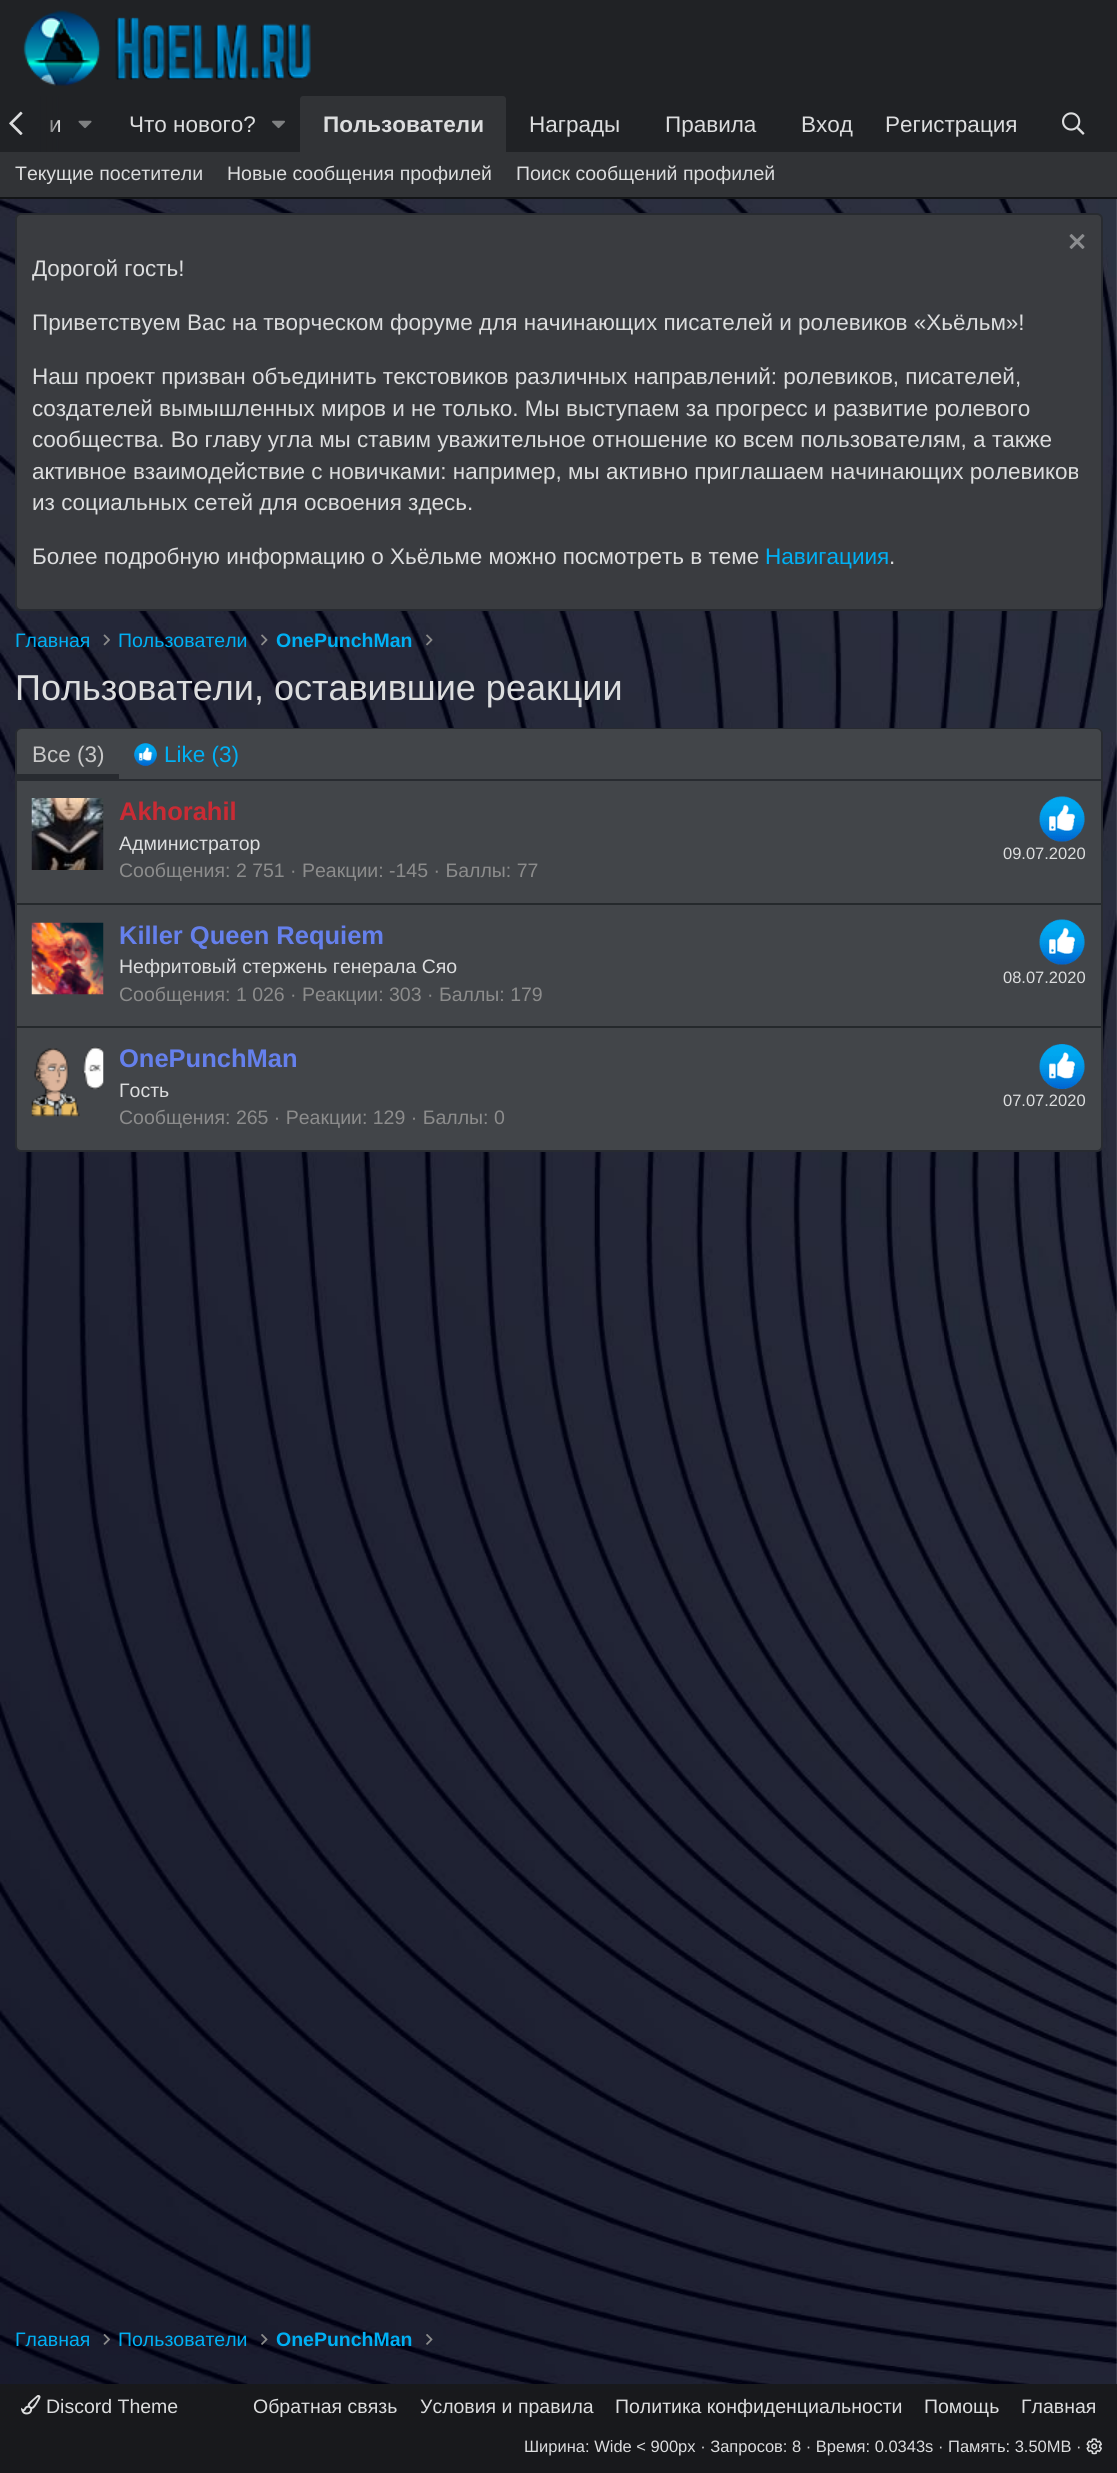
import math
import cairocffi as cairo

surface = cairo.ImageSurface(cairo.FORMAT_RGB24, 1117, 2473)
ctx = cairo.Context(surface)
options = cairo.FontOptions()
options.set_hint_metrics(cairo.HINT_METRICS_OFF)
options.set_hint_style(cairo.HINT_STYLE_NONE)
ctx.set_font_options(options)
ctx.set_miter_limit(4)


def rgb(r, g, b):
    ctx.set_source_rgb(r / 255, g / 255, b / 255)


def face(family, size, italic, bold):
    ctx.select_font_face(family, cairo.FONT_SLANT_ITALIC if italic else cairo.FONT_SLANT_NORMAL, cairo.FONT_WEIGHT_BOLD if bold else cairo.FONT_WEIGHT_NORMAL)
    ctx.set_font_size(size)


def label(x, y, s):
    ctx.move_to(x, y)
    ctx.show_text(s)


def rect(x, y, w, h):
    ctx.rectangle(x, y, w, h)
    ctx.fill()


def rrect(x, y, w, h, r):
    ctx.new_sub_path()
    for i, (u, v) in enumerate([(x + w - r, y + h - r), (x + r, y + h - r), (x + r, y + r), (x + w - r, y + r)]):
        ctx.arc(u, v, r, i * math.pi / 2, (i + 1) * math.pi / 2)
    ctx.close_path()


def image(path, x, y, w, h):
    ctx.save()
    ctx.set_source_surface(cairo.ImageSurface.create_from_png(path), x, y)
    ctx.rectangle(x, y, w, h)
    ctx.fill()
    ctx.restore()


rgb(255, 255, 255)
ctx.paint()
image('image0.png', 0, 199, 1117, 2185)
rgb(32, 34, 37)
rect(0, 0, 1117, 96)
image('image1.png', 23, 10, 288, 76)
rect(40, 96, 1077, 56)
face('Liberation Sans', 22.5, 0, 0)
rgb(220, 221, 222)
label(49, 132, 'и')
gradient = cairo.LinearGradient(0, 124, 60, 124)
gradient.add_color_stop_rgba(0.66, 0.125, 0.133, 0.145, 1)
gradient.add_color_stop_rgba(1, 0.125, 0.133, 0.145, 0)
ctx.set_source(gradient)
rect(0, 96, 60, 56)
image('image2.png', 9, 111, 14, 24)
image('image3.png', 78, 120, 14, 9)
rgb(220, 221, 222)
label(129, 132, 'Что нового?')
image('image4.png', 272, 120, 13, 9)
rgb(49, 51, 54)
ctx.new_path()
ctx.move_to(303, 96)
ctx.line_to(503, 96)
ctx.curve_to(504.5, 96, 506, 97.5, 506, 99)
ctx.line_to(506, 152)
ctx.line_to(300, 152)
ctx.line_to(300, 99)
ctx.curve_to(300, 97.5, 301.5, 96, 303, 96)
ctx.close_path()
ctx.fill()
face('Liberation Sans', 22.5, 0, 1)
rgb(220, 221, 222)
label(323, 132, 'Пользователи')
face('Liberation Sans', 22.5, 0, 0)
label(529, 132, 'Награды')
label(665, 132, 'Правила')
label(801, 132, 'Вход')
label(885, 132, 'Регистрация')
image('image5.png', 1062, 112, 23, 23)
rgb(49, 51, 54)
rect(0, 152, 1117, 45)
rgb(18, 20, 22)
rect(0, 197, 1117, 2)
face('Liberation Sans', 19.5, 0, 0)
rgb(220, 221, 222)
label(15, 180, 'Текущие посетители')
label(227, 180, 'Новые сообщения профилей')
label(516, 180, 'Поиск сообщений профилей')
rgb(58, 60, 64)
rrect(16, 214, 1086, 396, 5)
ctx.fill_preserve()
rgb(40, 43, 48)
ctx.stroke()
image('image6.png', 1069, 234, 16, 15)
face('Liberation Sans', 22.5, 0, 0)
rgb(220, 221, 222)
label(32, 276, 'Дорогой гость!')
label(32, 330, 'Приветствуем Вас на творческом форуме для начинающих писателей и ролевиков «Хьёльм»!')
label(32, 384, 'Наш проект призван объединить текстовиков различных направлений: ролевиков, писателей,')
label(32, 416, 'создателей вымышленных миров и не только. Мы выступаем за прогресс и развитие ролевого')
label(32, 447, 'сообщества. Во главу угла мы ставим уважительное отношение ко всем пользователям, а также')
label(32, 479, 'активное взаимодействие с новичками: например, мы активно приглашаем начинающих ролевиков')
label(32, 510, 'из социальных сетей для освоения здесь.')
label(32, 564, 'Более подробную информацию о Хьёльме можно посмотреть в теме')
rgb(0, 176, 244)
label(765, 564, 'Навигациия')
rgb(220, 221, 222)
label(889, 564, '.')
face('Liberation Sans', 19.5, 0, 0)
rgb(0, 176, 244)
label(15, 647, 'Главная')
image('image7.png', 103, 634, 7, 12)
label(118, 647, 'Пользователи')
image('image8.png', 261, 634, 7, 12)
face('Liberation Sans', 19.5, 0, 1)
label(276, 647, 'OnePunchMan')
image('image9.png', 426, 634, 7, 12)
face('Liberation Sans', 36, 0, 0)
rgb(220, 221, 222)
label(15, 700, 'Пользователи, оставившие реакции')
rgb(66, 69, 73)
rrect(16, 729, 1086, 422, 5)
ctx.fill_preserve()
rgb(40, 43, 48)
ctx.stroke()
rgb(66, 69, 73)
ctx.new_path()
ctx.move_to(22, 729)
ctx.line_to(1096, 729)
ctx.curve_to(1099, 729, 1101, 731, 1101, 734)
ctx.line_to(1101, 780)
ctx.line_to(17, 780)
ctx.line_to(17, 734)
ctx.curve_to(17, 731, 19, 729, 22, 729)
ctx.close_path()
ctx.fill()
rgb(40, 43, 48)
rect(17, 779, 1084, 2)
rect(17, 774, 102, 5)
face('Liberation Sans', 22.5, 0, 0)
rgb(200, 200, 200)
label(32, 762, 'Все (3)')
image('image10.png', 134, 743, 23, 23)
rgb(0, 176, 244)
label(164, 762, 'Like (3)')
image('image11.png', 31, 798, 73, 72)
face('Liberation Sans', 25.5, 0, 1)
rgb(202, 43, 52)
label(119, 820, 'Akhorahil')
face('Liberation Sans', 19.5, 0, 0)
rgb(220, 221, 222)
label(119, 850, 'Администратор')
image('image12.png', 1039, 796, 46, 46)
face('Liberation Sans', 16.5, 0, 0)
label(1003, 859, '09.07.2020')
face('Liberation Sans', 19.5, 0, 0)
rgb(140, 140, 140)
label(119, 877, 'Сообщения: 2 751 · Реакции: -145 · Баллы: 77')
rgb(37, 41, 44)
rect(17, 903, 1084, 2)
image('image13.png', 31, 922, 73, 73)
face('Liberation Sans', 25.5, 0, 1)
rgb(101, 128, 236)
label(119, 944, 'Killer Queen Requiem')
face('Liberation Sans', 19.5, 0, 0)
rgb(220, 221, 222)
label(119, 973, 'Нефритовый стержень генерала Сяо')
image('image12.png', 1039, 919, 46, 46)
face('Liberation Sans', 16.5, 0, 0)
label(1003, 983, '08.07.2020')
face('Liberation Sans', 19.5, 0, 0)
rgb(140, 140, 140)
label(119, 1001, 'Сообщения: 1 026 · Реакции: 303 · Баллы: 179')
rgb(37, 41, 44)
rect(17, 1026, 1084, 2)
image('image14.png', 31, 1047, 73, 70)
face('Liberation Sans', 25.5, 0, 1)
rgb(101, 128, 236)
label(119, 1067, 'OnePunchMan')
face('Liberation Sans', 19.5, 0, 0)
rgb(220, 221, 222)
label(119, 1097, 'Гость')
image('image15.png', 1039, 1044, 46, 45)
face('Liberation Sans', 16.5, 0, 0)
label(1003, 1106, '07.07.2020')
face('Liberation Sans', 19.5, 0, 0)
rgb(140, 140, 140)
label(119, 1124, 'Сообщения: 265 · Реакции: 129 · Баллы: 0')
rgb(0, 176, 244)
label(15, 2346, 'Главная')
image('image16.png', 103, 2334, 7, 11)
label(118, 2346, 'Пользователи')
image('image17.png', 261, 2334, 7, 11)
face('Liberation Sans', 19.5, 0, 1)
label(276, 2346, 'OnePunchMan')
image('image18.png', 426, 2334, 7, 11)
rgb(24, 25, 28)
rect(0, 2384, 1117, 89)
image('image19.png', 21, 2395, 20, 20)
face('Liberation Sans', 19.5, 0, 0)
rgb(220, 221, 222)
label(46, 2413, 'Discord Theme')
label(253, 2413, 'Обратная связь')
label(420, 2413, 'Условия и правила')
label(615, 2413, 'Политика конфиденциальности')
label(924, 2413, 'Помощь')
label(1021, 2413, 'Главная')
face('Liberation Sans', 16.5, 0, 0)
label(524, 2452, 'Ширина: Wide < 900px · Запросов: 8 · Время: 0.0343s · Память: 3.50MB ·')
image('image20.png', 1086, 2438, 16, 17)
surface.write_to_png('render.png')
